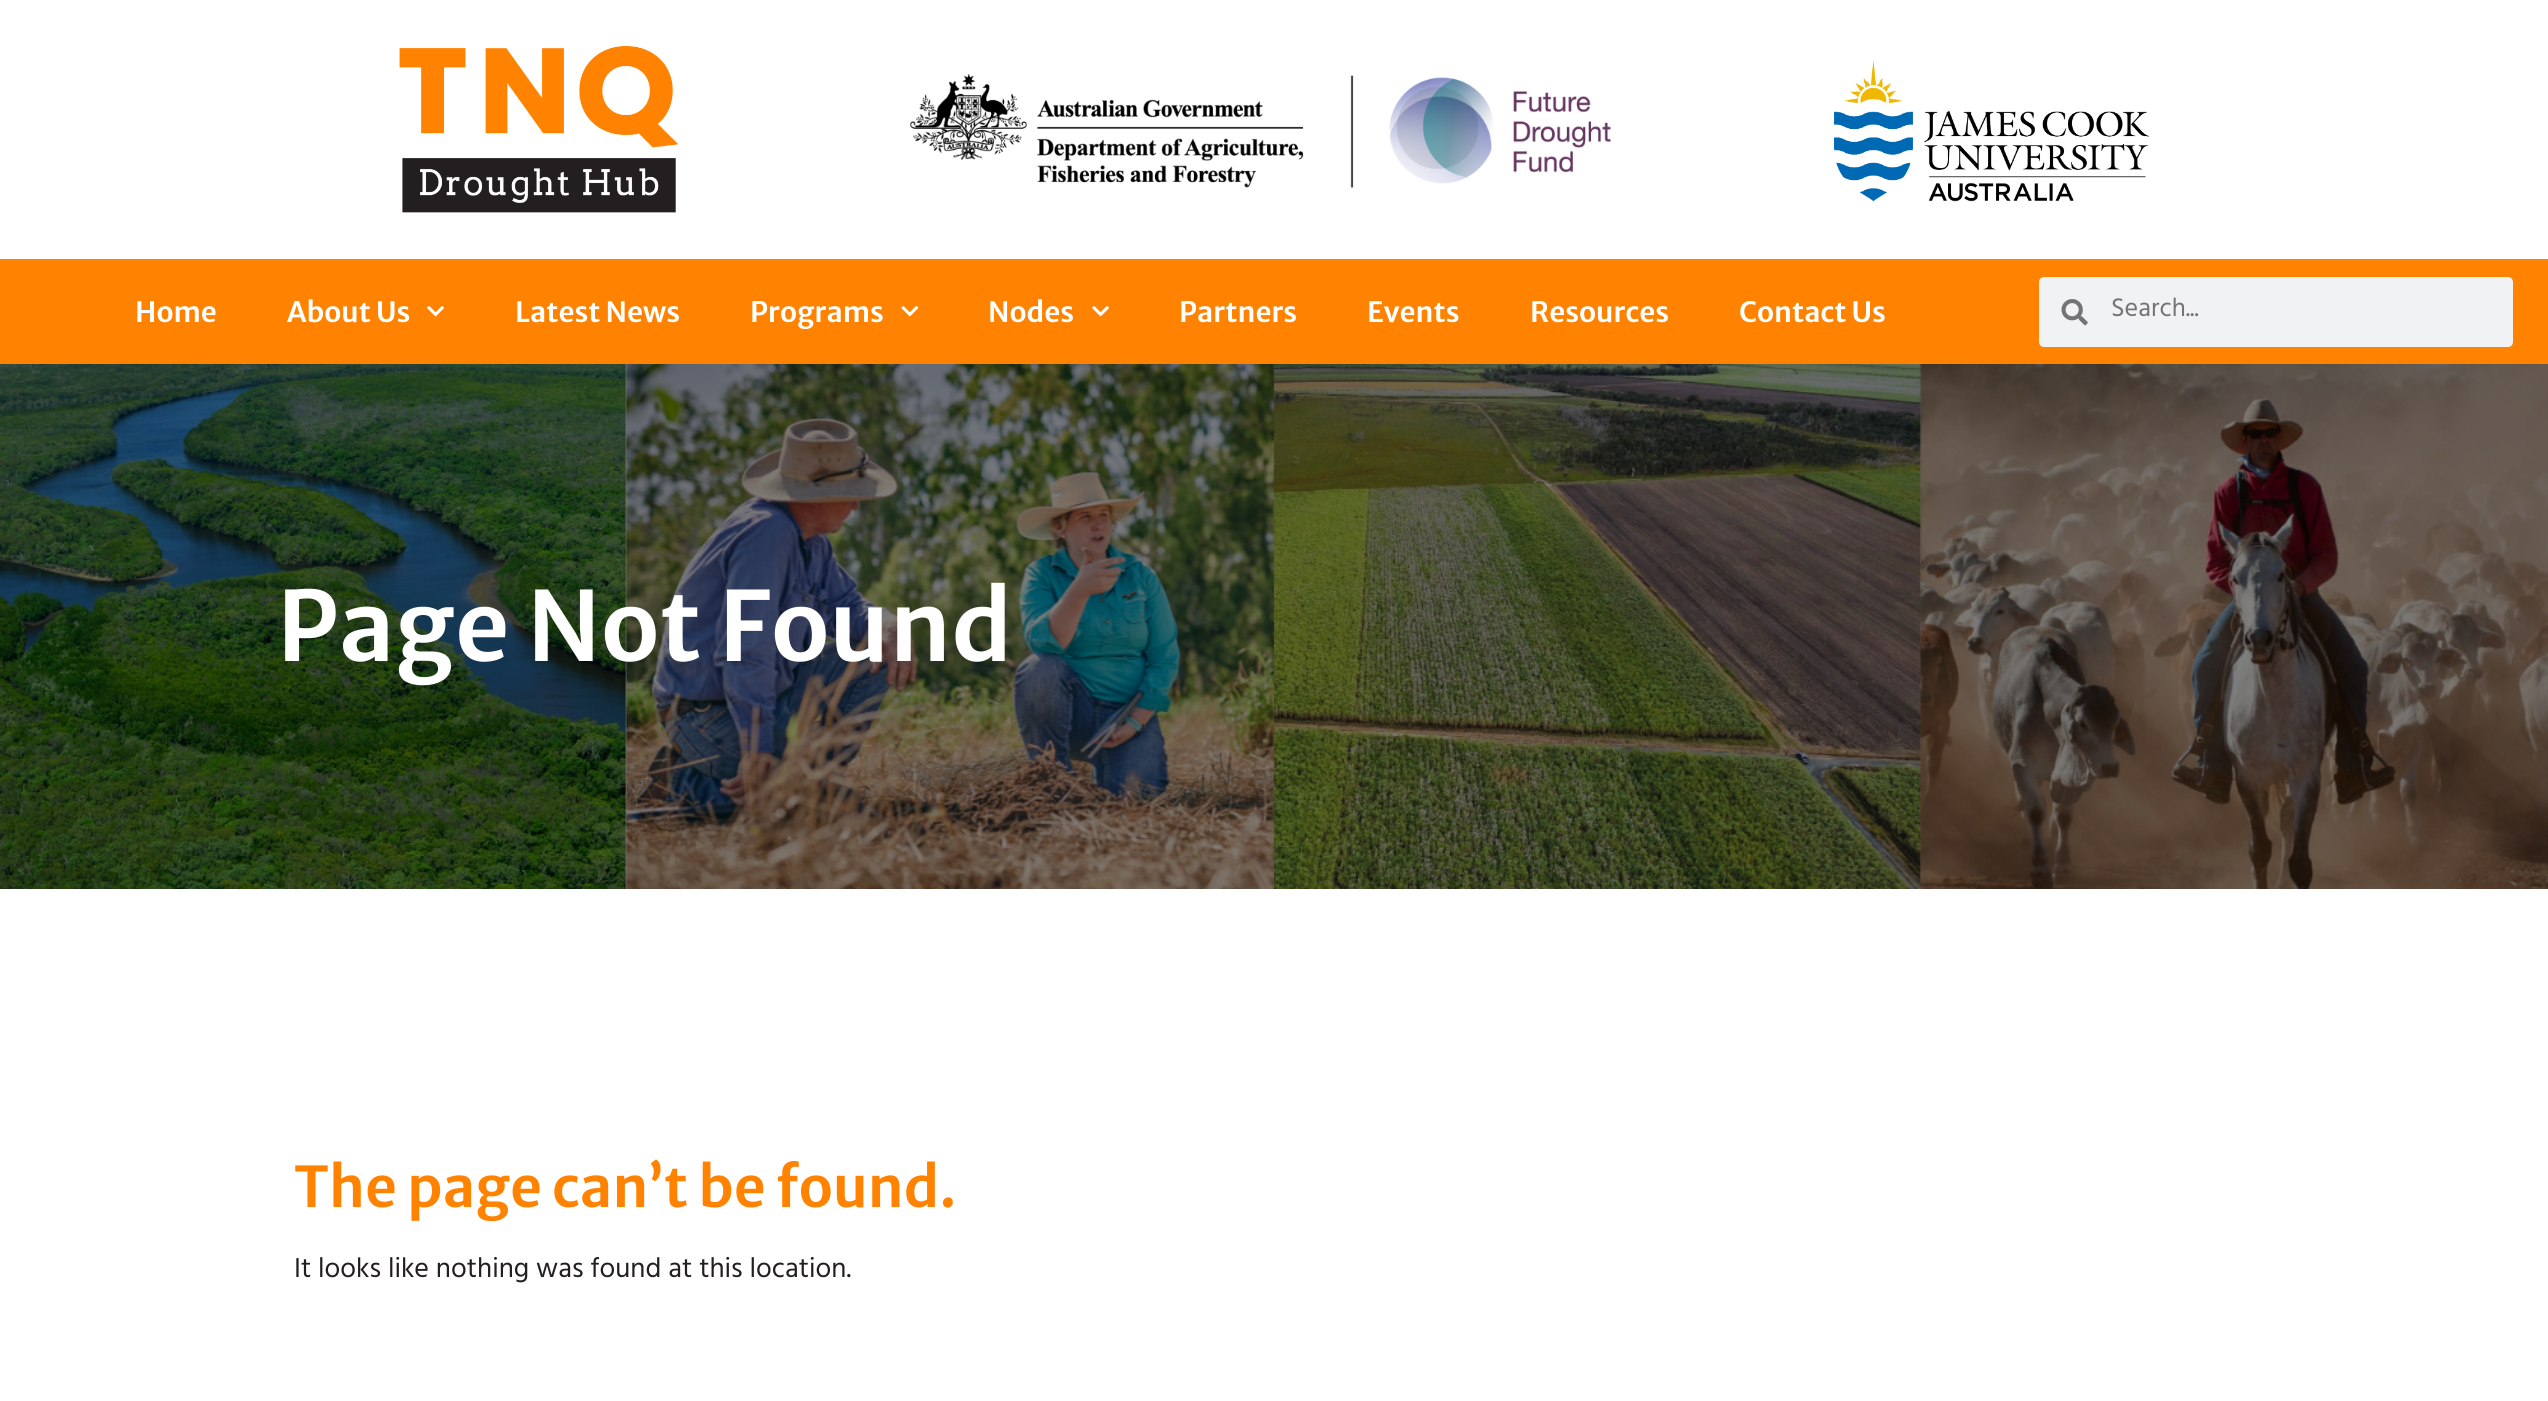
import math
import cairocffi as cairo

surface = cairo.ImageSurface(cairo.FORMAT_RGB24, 2548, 1401)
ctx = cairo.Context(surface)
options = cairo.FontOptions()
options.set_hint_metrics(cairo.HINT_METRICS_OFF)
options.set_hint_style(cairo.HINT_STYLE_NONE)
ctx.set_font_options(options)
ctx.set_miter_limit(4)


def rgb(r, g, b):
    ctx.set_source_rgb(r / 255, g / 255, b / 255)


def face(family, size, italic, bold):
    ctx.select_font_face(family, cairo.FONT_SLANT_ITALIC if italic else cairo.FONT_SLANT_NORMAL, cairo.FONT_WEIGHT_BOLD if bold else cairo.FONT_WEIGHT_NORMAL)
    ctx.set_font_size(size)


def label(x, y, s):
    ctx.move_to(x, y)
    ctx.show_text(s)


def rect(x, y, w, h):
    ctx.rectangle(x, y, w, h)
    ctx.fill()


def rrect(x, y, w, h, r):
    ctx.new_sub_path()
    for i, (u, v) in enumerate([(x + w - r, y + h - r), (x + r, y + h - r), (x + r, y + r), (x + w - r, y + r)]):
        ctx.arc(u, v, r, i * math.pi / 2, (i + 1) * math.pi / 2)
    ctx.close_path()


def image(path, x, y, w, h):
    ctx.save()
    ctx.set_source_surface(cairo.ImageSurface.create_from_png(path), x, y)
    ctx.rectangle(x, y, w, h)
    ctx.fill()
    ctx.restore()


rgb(255, 255, 255)
ctx.paint()
image('image0.png', 399, 45, 280, 168)
image('image1.png', 910, 74, 701, 114)
image('image2.png', 1834, 59, 315, 143)
rgb(255, 130, 0)
rect(0, 259, 2548, 105)
face('Merriweather Sans SemiBold', 28, 0, 0)
rgb(255, 255, 255)
label(135, 322, 'Home')
label(287, 322, 'About Us')
image('image3.png', 427, 306, 17, 11)
label(515, 322, 'Latest News')
label(750, 322, 'Programs')
image('image4.png', 901, 306, 18, 11)
label(988, 322, 'Nodes')
image('image3.png', 1092, 306, 17, 11)
label(1179, 322, 'Partners')
label(1367, 322, 'Events')
label(1530, 322, 'Resources')
label(1739, 322, 'Contact Us')
rgb(241, 242, 243)
rrect(2039, 277, 474, 70, 5)
ctx.fill()
image('image5.png', 2061, 299, 27, 27)
face('Hind Guntur', 26, 0, 0)
rgb(117, 115, 116)
label(2111, 316, 'Search...')
image('image6.png', 0, 364, 2548, 525)
face('Merriweather Sans SemiBold', 96.25, 0, 0)
rgb(255, 255, 255)
label(277, 661, 'Page Not Found')
face('Merriweather Sans SemiBold', 56, 0, 0)
rgb(255, 130, 0)
label(294, 1207, 'The page can’t be found.')
face('Hind Guntur', 28, 0, 0)
rgb(35, 31, 32)
label(294, 1277, 'It looks like nothing was found at this location.')
surface.write_to_png('render.png')
